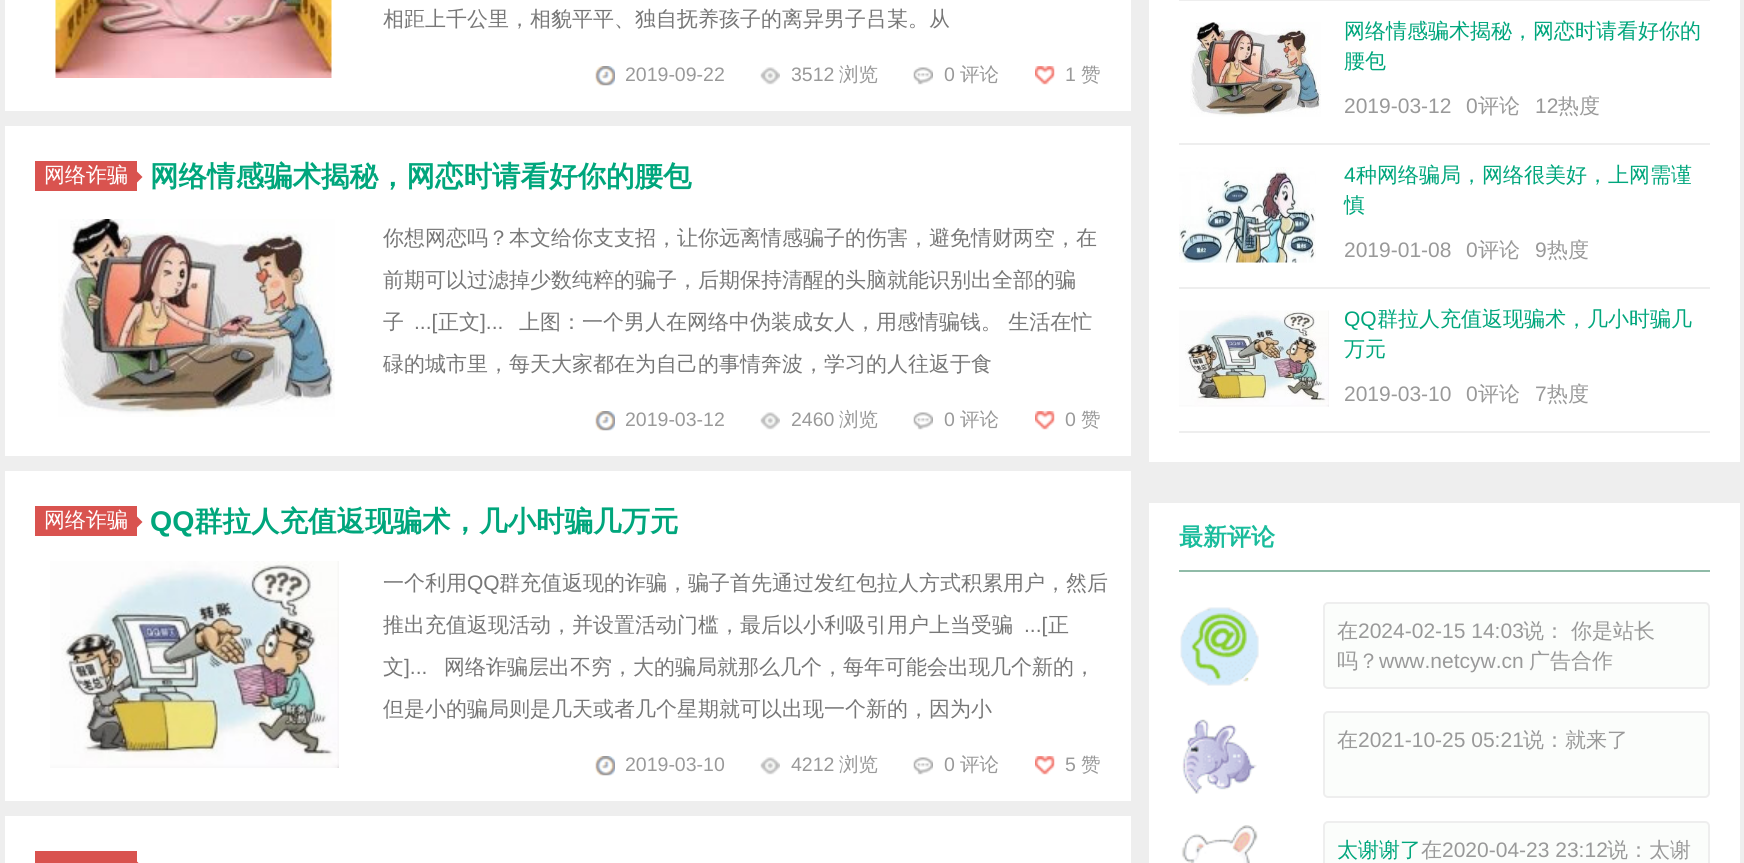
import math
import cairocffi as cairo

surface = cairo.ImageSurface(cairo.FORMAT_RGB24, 1744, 863)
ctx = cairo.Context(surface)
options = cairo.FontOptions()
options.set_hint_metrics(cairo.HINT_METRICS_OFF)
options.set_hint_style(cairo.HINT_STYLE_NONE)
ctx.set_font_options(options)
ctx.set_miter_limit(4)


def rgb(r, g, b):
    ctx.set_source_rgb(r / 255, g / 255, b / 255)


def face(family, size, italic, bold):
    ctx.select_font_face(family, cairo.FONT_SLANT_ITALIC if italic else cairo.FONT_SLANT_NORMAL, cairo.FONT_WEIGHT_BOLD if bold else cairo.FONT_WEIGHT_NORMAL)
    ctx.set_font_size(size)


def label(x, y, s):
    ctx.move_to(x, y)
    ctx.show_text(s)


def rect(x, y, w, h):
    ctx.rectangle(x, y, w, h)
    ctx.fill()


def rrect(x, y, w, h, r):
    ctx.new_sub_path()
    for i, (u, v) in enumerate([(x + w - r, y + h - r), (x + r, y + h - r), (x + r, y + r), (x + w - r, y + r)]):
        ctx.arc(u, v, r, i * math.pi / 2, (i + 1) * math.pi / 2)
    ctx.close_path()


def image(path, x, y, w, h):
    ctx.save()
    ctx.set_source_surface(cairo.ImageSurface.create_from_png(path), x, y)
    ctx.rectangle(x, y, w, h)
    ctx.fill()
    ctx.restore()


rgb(238, 238, 238)
ctx.paint()
rgb(255, 255, 255)
rect(5, 0, 1126, 111)
image('image0.png', 55, 0, 277, 78)
face('WenQuanYi Zen Hei Medium', 21, 0, 0)
rgb(119, 119, 119)
label(383, 26, '相距上千公里，相貌平平、独自抚养孩子的离异男子吕某。从')
image('image1.png', 595, 66, 20, 20)
face('Liberation Sans', 19.5, 0, 0)
rgb(153, 153, 153)
label(625, 81, '2019-09-22')
image('image2.png', 760, 67, 20, 18)
label(791, 81, '3512')
face('WenQuanYi Zen Hei Medium', 19.5, 0, 0)
label(839, 81, '浏览')
image('image3.png', 913, 67, 20, 18)
face('Liberation Sans', 19.5, 0, 0)
label(944, 81, '0')
face('WenQuanYi Zen Hei Medium', 19.5, 0, 0)
label(960, 81, '评论')
image('image4.png', 1035, 66, 20, 19)
face('Liberation Sans', 19.5, 0, 0)
label(1065, 81, '1')
face('WenQuanYi Zen Hei Medium', 19.5, 0, 0)
label(1081, 81, '赞')
rgb(255, 255, 255)
rect(5, 126, 1126, 330)
rgb(217, 83, 79)
rect(35, 161, 102, 30)
face('WenQuanYi Zen Hei Medium', 21, 0, 0)
rgb(255, 255, 255)
label(44, 182, '网络诈骗')
rgb(217, 83, 79)
ctx.new_path()
ctx.move_to(136.5, 183)
ctx.line_to(136.5, 171)
ctx.line_to(142.5, 177)
ctx.close_path()
ctx.fill()
face('WenQuanYi Zen Hei', 28.5, 0, 1)
rgb(0, 166, 124)
label(150, 186, '网络情感骗术揭秘，网恋时请看好你的腰包')
image('image5.png', 58, 219, 277, 198)
face('WenQuanYi Zen Hei Medium', 21, 0, 0)
rgb(119, 119, 119)
label(383, 245, '你想网恋吗？本文给你支支招，让你远离情感骗子的伤害，避免情财两空，在')
label(383, 287, '前期可以过滤掉少数纯粹的骗子，后期保持清醒的头脑就能识别出全部的骗')
label(383, 329, '子')
face('Liberation Sans', 21, 0, 0)
label(414, 329, '...[')
face('WenQuanYi Zen Hei Medium', 21, 0, 0)
label(438, 329, '正文')
face('Liberation Sans', 21, 0, 0)
label(480, 329, ']...')
face('WenQuanYi Zen Hei Medium', 21, 0, 0)
label(519, 329, '上图：一个男人在网络中伪装成女人，用感情骗钱。 生活在忙')
label(383, 371, '碌的城市里，每天大家都在为自己的事情奔波，学习的人往返于食')
image('image1.png', 595, 411, 20, 20)
face('Liberation Sans', 19.5, 0, 0)
rgb(153, 153, 153)
label(625, 426, '2019-03-12')
image('image2.png', 760, 412, 20, 18)
label(791, 426, '2460')
face('WenQuanYi Zen Hei Medium', 19.5, 0, 0)
label(839, 426, '浏览')
image('image3.png', 913, 412, 20, 18)
face('Liberation Sans', 19.5, 0, 0)
label(944, 426, '0')
face('WenQuanYi Zen Hei Medium', 19.5, 0, 0)
label(960, 426, '评论')
image('image4.png', 1035, 411, 20, 19)
face('Liberation Sans', 19.5, 0, 0)
label(1065, 426, '0')
face('WenQuanYi Zen Hei Medium', 19.5, 0, 0)
label(1081, 426, '赞')
rgb(255, 255, 255)
rect(5, 471, 1126, 330)
rgb(217, 83, 79)
rect(35, 506, 102, 30)
face('WenQuanYi Zen Hei Medium', 21, 0, 0)
rgb(255, 255, 255)
label(44, 527, '网络诈骗')
rgb(217, 83, 79)
ctx.new_path()
ctx.move_to(136.5, 528)
ctx.line_to(136.5, 516)
ctx.line_to(142.5, 522)
ctx.close_path()
ctx.fill()
face('Liberation Sans', 28.5, 0, 1)
rgb(0, 166, 124)
label(150, 531, 'QQ')
face('WenQuanYi Zen Hei', 28.5, 0, 1)
label(194, 531, '群拉人充值返现骗术，几小时骗几万元')
image('image6.png', 50, 561, 289, 207)
face('WenQuanYi Zen Hei Medium', 21, 0, 0)
rgb(119, 119, 119)
label(383, 590, '一个利用')
face('Liberation Sans', 21, 0, 0)
label(467, 590, 'QQ')
face('WenQuanYi Zen Hei Medium', 21, 0, 0)
label(499, 590, '群充值返现的诈骗，骗子首先通过发红包拉人方式积累用户，然后')
label(383, 632, '推出充值返现活动，并设置活动门槛，最后以小利吸引用户上当受骗')
face('Liberation Sans', 21, 0, 0)
label(1024, 632, '...[')
face('WenQuanYi Zen Hei Medium', 21, 0, 0)
label(1048, 632, '正')
label(383, 674, '文')
face('Liberation Sans', 21, 0, 0)
label(404, 674, ']...')
face('WenQuanYi Zen Hei Medium', 21, 0, 0)
label(444, 674, '网络诈骗层出不穷，大的骗局就那么几个，每年可能会出现几个新的，')
label(383, 716, '但是小的骗局则是几天或者几个星期就可以出现一个新的，因为小')
image('image1.png', 595, 756, 20, 20)
face('Liberation Sans', 19.5, 0, 0)
rgb(153, 153, 153)
label(625, 771, '2019-03-10')
image('image2.png', 760, 757, 20, 18)
label(791, 771, '4212')
face('WenQuanYi Zen Hei Medium', 19.5, 0, 0)
label(839, 771, '浏览')
image('image3.png', 913, 757, 20, 18)
face('Liberation Sans', 19.5, 0, 0)
label(944, 771, '0')
face('WenQuanYi Zen Hei Medium', 19.5, 0, 0)
label(960, 771, '评论')
image('image4.png', 1035, 756, 20, 19)
face('Liberation Sans', 19.5, 0, 0)
label(1065, 771, '5')
face('WenQuanYi Zen Hei Medium', 19.5, 0, 0)
label(1081, 771, '赞')
rgb(255, 255, 255)
rect(5, 816, 1126, 47)
rgb(217, 83, 79)
rect(35, 851, 102, 12)
ctx.new_path()
ctx.move_to(136.5, 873)
ctx.line_to(136.5, 861)
ctx.line_to(142.5, 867)
ctx.close_path()
ctx.fill()
rgb(255, 255, 255)
rect(1149, 0, 591, 462)
rgb(238, 238, 238)
rect(1179, 0, 531, 1)
rect(1179, 143, 531, 2)
image('image7.png', 1190, 22, 131, 95)
face('WenQuanYi Zen Hei Medium', 21, 0, 0)
rgb(0, 166, 124)
label(1344, 38, '网络情感骗术揭秘，网恋时请看好你的')
label(1344, 68, '腰包')
face('Liberation Sans', 21, 0, 0)
rgb(153, 153, 153)
label(1344, 113, '2019-03-12')
label(1466, 113, '0')
face('WenQuanYi Zen Hei Medium', 21, 0, 0)
label(1478, 113, '评论')
face('Liberation Sans', 21, 0, 0)
label(1535, 113, '12')
face('WenQuanYi Zen Hei Medium', 21, 0, 0)
label(1558, 113, '热度')
rgb(238, 238, 238)
rect(1179, 287, 531, 2)
image('image8.png', 1179, 167, 137, 96)
face('Liberation Sans', 21, 0, 0)
rgb(0, 166, 124)
label(1344, 182, '4')
face('WenQuanYi Zen Hei Medium', 21, 0, 0)
label(1356, 182, '种网络骗局，网络很美好，上网需谨')
label(1344, 212, '慎')
face('Liberation Sans', 21, 0, 0)
rgb(153, 153, 153)
label(1344, 257, '2019-01-08')
label(1466, 257, '0')
face('WenQuanYi Zen Hei Medium', 21, 0, 0)
label(1478, 257, '评论')
face('Liberation Sans', 21, 0, 0)
label(1535, 257, '9')
face('WenQuanYi Zen Hei Medium', 21, 0, 0)
label(1547, 257, '热度')
rgb(238, 238, 238)
rect(1179, 431, 531, 2)
image('image9.png', 1179, 310, 150, 97)
face('Liberation Sans', 21, 0, 0)
rgb(0, 166, 124)
label(1344, 326, 'QQ')
face('WenQuanYi Zen Hei Medium', 21, 0, 0)
label(1377, 326, '群拉人充值返现骗术，几小时骗几')
label(1344, 356, '万元')
face('Liberation Sans', 21, 0, 0)
rgb(153, 153, 153)
label(1344, 401, '2019-03-10')
label(1466, 401, '0')
face('WenQuanYi Zen Hei Medium', 21, 0, 0)
label(1478, 401, '评论')
face('Liberation Sans', 21, 0, 0)
label(1535, 401, '7')
face('WenQuanYi Zen Hei Medium', 21, 0, 0)
label(1547, 401, '热度')
rgb(255, 255, 255)
rect(1149, 503, 591, 360)
rgb(144, 187, 168)
rect(1179, 570, 531, 2)
face('WenQuanYi Zen Hei', 24, 0, 1)
rgb(26, 188, 156)
label(1179, 545, '最新评论')
image('image10.png', 1180, 607, 79, 79)
rgb(251, 253, 251)
rrect(1324, 603, 385, 85, 4)
ctx.fill_preserve()
rgb(238, 238, 238)
ctx.stroke()
face('WenQuanYi Zen Hei Medium', 21, 0, 0)
rgb(153, 153, 153)
label(1337, 638, '在')
face('Liberation Sans', 21, 0, 0)
label(1358, 638, '2024-02-15 14:03')
face('WenQuanYi Zen Hei Medium', 21, 0, 0)
label(1523, 638, '说：')
label(1571, 638, '你是站长')
label(1337, 668, '吗？')
face('Liberation Sans', 21, 0, 0)
label(1379, 668, 'www.netcyw.cn')
face('WenQuanYi Zen Hei Medium', 21, 0, 0)
label(1529, 668, '广告合作')
image('image11.png', 1182, 719, 75, 75)
rgb(251, 253, 251)
rrect(1324, 712, 385, 85, 4)
ctx.fill_preserve()
rgb(238, 238, 238)
ctx.stroke()
rgb(153, 153, 153)
label(1337, 747, '在')
face('Liberation Sans', 21, 0, 0)
label(1358, 747, '2021-10-25 05:21')
face('WenQuanYi Zen Hei Medium', 21, 0, 0)
label(1523, 747, '说：就来了')
image('image12.png', 1181, 825, 77, 38)
rgb(251, 253, 251)
rrect(1324, 822, 385, 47, 4)
ctx.fill_preserve()
rgb(238, 238, 238)
ctx.stroke()
rgb(0, 166, 124)
label(1337, 857, '太谢谢了')
rgb(153, 153, 153)
label(1421, 857, '在')
face('Liberation Sans', 21, 0, 0)
label(1442, 857, '2020-04-23 23:12')
face('WenQuanYi Zen Hei Medium', 21, 0, 0)
label(1607, 857, '说：太谢')
surface.write_to_png('render.png')
